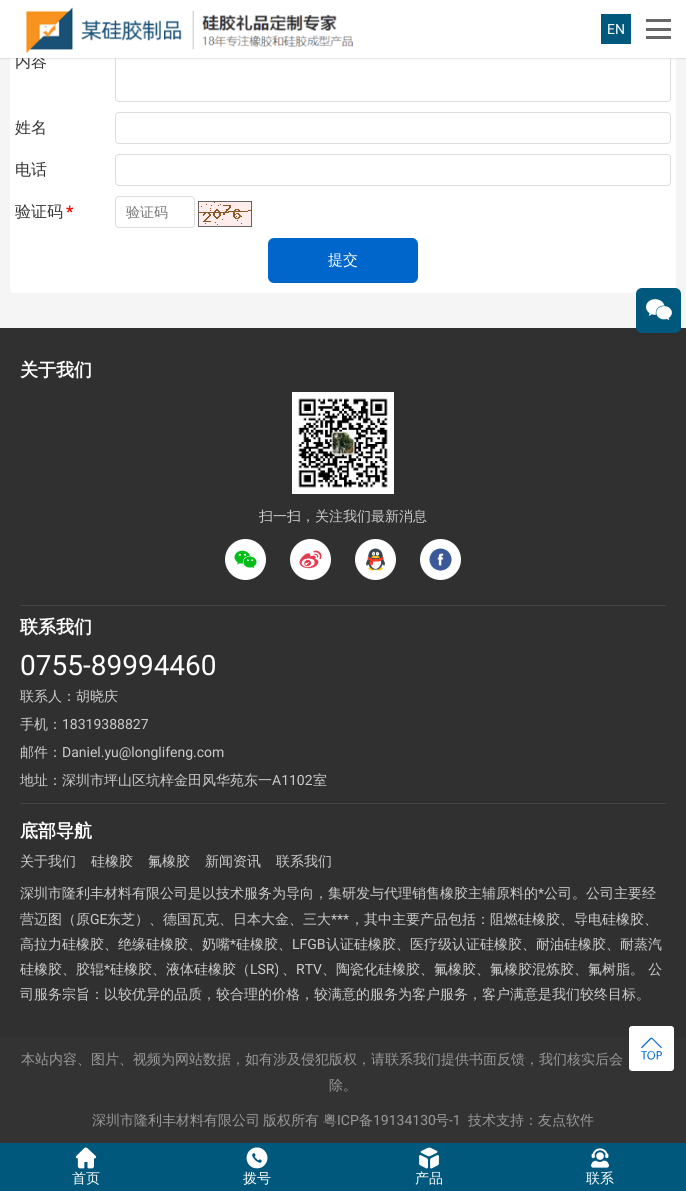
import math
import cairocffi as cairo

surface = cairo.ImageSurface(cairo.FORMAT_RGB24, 686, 1191)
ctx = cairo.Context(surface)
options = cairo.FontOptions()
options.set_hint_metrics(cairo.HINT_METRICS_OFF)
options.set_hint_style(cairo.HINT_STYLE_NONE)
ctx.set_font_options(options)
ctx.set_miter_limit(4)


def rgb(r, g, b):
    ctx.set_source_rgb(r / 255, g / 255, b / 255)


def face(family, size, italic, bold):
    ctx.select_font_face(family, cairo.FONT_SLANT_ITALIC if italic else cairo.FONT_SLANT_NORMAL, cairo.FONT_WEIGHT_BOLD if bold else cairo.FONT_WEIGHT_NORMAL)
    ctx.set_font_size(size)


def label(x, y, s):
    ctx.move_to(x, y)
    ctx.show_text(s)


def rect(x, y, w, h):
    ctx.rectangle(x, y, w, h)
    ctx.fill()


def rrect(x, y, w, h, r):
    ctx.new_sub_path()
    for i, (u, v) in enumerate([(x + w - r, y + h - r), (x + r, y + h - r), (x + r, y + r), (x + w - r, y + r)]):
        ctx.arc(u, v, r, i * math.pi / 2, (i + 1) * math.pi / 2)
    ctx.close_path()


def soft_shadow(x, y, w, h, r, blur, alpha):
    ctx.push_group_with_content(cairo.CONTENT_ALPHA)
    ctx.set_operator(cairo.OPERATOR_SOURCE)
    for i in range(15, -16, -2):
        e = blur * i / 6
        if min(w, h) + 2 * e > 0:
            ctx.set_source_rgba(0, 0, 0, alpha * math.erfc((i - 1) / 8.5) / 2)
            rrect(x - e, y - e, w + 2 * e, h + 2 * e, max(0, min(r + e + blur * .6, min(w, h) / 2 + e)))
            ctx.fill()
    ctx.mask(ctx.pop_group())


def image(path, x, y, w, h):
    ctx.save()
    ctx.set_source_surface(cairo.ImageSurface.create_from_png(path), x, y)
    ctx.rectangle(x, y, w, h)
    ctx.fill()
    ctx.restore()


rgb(245, 245, 245)
ctx.paint()
rgb(255, 255, 255)
rrect(10, -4, 666, 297, 4)
ctx.fill()
rrect(115.5, 22.5, 555, 79, 3.5)
rgb(221, 221, 221)
ctx.set_line_width(1)
ctx.stroke()
rgb(0, 0, 0)
soft_shadow(0, 1, 686, 58, 0, 0.5, 0.1)
face('WenQuanYi Zen Hei Medium', 16, 0, 0)
rgb(51, 51, 51)
label(15, 67, '内容')
rgb(255, 255, 255)
rect(0, 0, 686, 58)
image('image0.png', 25, 7, 329, 47)
rgb(0, 88, 125)
rect(601, 14, 30, 30)
face('Roboto', 14, 0, 0)
rgb(255, 255, 255)
label(607, 34, 'EN')
rgb(102, 102, 102)
rect(646, 19, 25, 3)
rect(646, 36, 25, 3)
rect(646, 28, 25, 3)
face('WenQuanYi Zen Hei Medium', 16, 0, 0)
rgb(51, 51, 51)
label(15, 133, '姓名')
rrect(115.5, 112.5, 555, 31, 3.5)
rgb(221, 221, 221)
ctx.stroke()
rgb(51, 51, 51)
label(15, 175, '电话')
rrect(115.5, 154.5, 555, 31, 3.5)
rgb(221, 221, 221)
ctx.stroke()
rgb(51, 51, 51)
label(15, 217, '验证码')
face('Roboto', 16, 0, 1)
rgb(255, 0, 0)
label(66, 217, '*')
rrect(115.5, 196.5, 79, 31, 3.5)
rgb(221, 221, 221)
ctx.stroke()
face('WenQuanYi Zen Hei Medium', 14, 0, 0)
rgb(117, 117, 117)
label(126, 217, '验证码')
image('image1.png', 198, 201, 54, 26)
rgb(0, 102, 204)
rrect(268, 238, 150, 45, 6)
ctx.fill()
face('WenQuanYi Zen Hei Medium', 15, 0, 0)
rgb(255, 255, 255)
label(328, 265, '提交')
rgb(48, 48, 48)
rect(0, 328, 686, 709)
ctx.save()
ctx.rectangle(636, 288, 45, 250)
ctx.clip()
rgb(0, 0, 0)
soft_shadow(636, 288, 45, 45, 6, 4.5, 0.1)
ctx.restore()
rgb(0, 88, 125)
rrect(636, 288, 45, 45, 6)
ctx.fill()
image('image2.png', 646, 299, 26, 22)
face('WenQuanYi Zen Hei', 18, 0, 1)
rgb(255, 255, 255)
label(20, 376, '关于我们')
image('image3.png', 292, 392, 102, 102)
face('WenQuanYi Zen Hei Medium', 14, 0, 0)
rgb(204, 204, 204)
label(259, 521, '扫一扫，关注我们最新消息')
rgb(255, 255, 255)
ctx.new_path()
ctx.arc(245.5, 559.5, 20.5, 0, 2 * math.pi)
ctx.fill()
image('image4.png', 234, 550, 23, 18)
ctx.arc(310.5, 559.5, 20.5, 0, 2 * math.pi)
ctx.fill()
image('image5.png', 299, 550, 23, 19)
ctx.arc(375.5, 559.5, 20.5, 0, 2 * math.pi)
ctx.fill()
image('image6.png', 366, 548, 19, 23)
ctx.arc(440.5, 559.5, 20.5, 0, 2 * math.pi)
ctx.fill()
image('image7.png', 429, 548, 23, 23)
rgb(68, 68, 68)
rect(20, 605, 646, 1)
face('WenQuanYi Zen Hei', 18, 0, 1)
rgb(255, 255, 255)
label(20, 633, '联系我们')
face('Roboto', 28, 0, 0)
label(20, 675, '0755-89994460')
face('WenQuanYi Zen Hei Medium', 14, 0, 0)
rgb(204, 204, 204)
label(20, 701, '联系人：胡晓庆')
label(20, 729, '手机：')
face('Roboto', 14, 0, 0)
label(62, 729, '18319388827')
face('WenQuanYi Zen Hei Medium', 14, 0, 0)
label(20, 757, '邮件：')
face('Roboto', 14, 0, 0)
label(62, 757, 'Daniel.yu@longlifeng.com')
face('WenQuanYi Zen Hei Medium', 14, 0, 0)
label(20, 785, '地址：深圳市坪山区坑梓金田风华苑东一')
face('Roboto', 14, 0, 0)
label(272, 785, 'A1102')
face('WenQuanYi Zen Hei Medium', 14, 0, 0)
label(313, 785, '室')
rgb(68, 68, 68)
rect(20, 803, 646, 1)
face('WenQuanYi Zen Hei', 18, 0, 1)
rgb(255, 255, 255)
label(20, 837, '底部导航')
face('WenQuanYi Zen Hei Medium', 14, 0, 0)
rgb(204, 204, 204)
label(20, 866, '关于我们')
label(91, 866, '硅橡胶')
label(148, 866, '氟橡胶')
label(205, 866, '新闻资讯')
label(276, 866, '联系我们')
label(20, 898, '深圳市隆利丰材料有限公司是以技术服务为导向，集研发与代理销售橡胶主辅原料的')
face('Roboto', 14, 0, 0)
label(538, 898, '*')
face('WenQuanYi Zen Hei Medium', 14, 0, 0)
label(544, 898, '公司。公司主要经')
label(20, 924, '营迈图（原')
face('Roboto', 14, 0, 0)
label(90, 924, 'GE')
face('WenQuanYi Zen Hei Medium', 14, 0, 0)
label(107, 924, '东芝）、德国瓦克、日本大金、三大')
face('Roboto', 14, 0, 0)
label(331, 924, '***')
face('WenQuanYi Zen Hei Medium', 14, 0, 0)
label(350, 924, '，其中主要产品包括：阻燃硅橡胶、导电硅橡胶、')
label(20, 949, '高拉力硅橡胶、绝缘硅橡胶、奶嘴')
face('Roboto', 14, 0, 0)
label(230, 949, '*')
face('WenQuanYi Zen Hei Medium', 14, 0, 0)
label(236, 949, '硅橡胶、')
face('Roboto', 14, 0, 0)
label(292, 949, 'LFGB')
face('WenQuanYi Zen Hei Medium', 14, 0, 0)
label(326, 949, '认证硅橡胶、医疗级认证硅橡胶、耐油硅橡胶、耐蒸汽')
label(20, 974, '硅橡胶、胶辊')
face('Roboto', 14, 0, 0)
label(104, 974, '*')
face('WenQuanYi Zen Hei Medium', 14, 0, 0)
label(110, 974, '硅橡胶、液体硅橡胶（')
face('Roboto', 14, 0, 0)
label(250, 974, 'LSR)')
face('WenQuanYi Zen Hei Medium', 14, 0, 0)
label(282, 974, '、')
face('Roboto', 14, 0, 0)
label(296, 974, 'RTV')
face('WenQuanYi Zen Hei Medium', 14, 0, 0)
label(322, 974, '、陶瓷化硅橡胶、氟橡胶、氟橡胶混炼胶、氟树脂。 公')
label(20, 999, '司服务宗旨：以较优异的品质，较合理的价格，较满意的服务为客户服务，客户满意是我们较终目标。')
rgb(51, 51, 51)
rect(0, 1037, 686, 106)
rgb(153, 153, 153)
label(21, 1064, '本站内容、图片、视频为网站数据，如有涉及侵犯版权，请联系我们提供书面反馈，我们核实后会')
label(329, 1090, '除。')
label(92, 1125, '深圳市隆利丰材料有限公司')
label(263, 1125, '版权所有')
label(323, 1125, '粤')
face('Roboto', 14, 0, 0)
label(337, 1125, 'ICP')
face('WenQuanYi Zen Hei Medium', 14, 0, 0)
label(359, 1125, '备')
face('Roboto', 14, 0, 0)
label(373, 1125, '19134130')
face('WenQuanYi Zen Hei Medium', 14, 0, 0)
label(435, 1125, '号')
face('Roboto', 14, 0, 0)
label(449, 1125, '-1')
face('WenQuanYi Zen Hei Medium', 14, 0, 0)
label(468, 1125, '技术支持：友点软件')
rgb(255, 255, 255)
rrect(629, 1026, 45, 45, 3)
ctx.fill()
image('image8.png', 641, 1037, 21, 23)
rgb(0, 88, 125)
rect(0, 1143, 686, 48)
image('image9.png', 75, 1147, 22, 22)
rgb(255, 255, 255)
label(72, 1183, '首页')
image('image10.png', 246, 1147, 22, 22)
label(243, 1183, '拨号')
image('image11.png', 419, 1147, 20, 22)
label(415, 1183, '产品')
image('image12.png', 591, 1148, 18, 20)
label(586, 1183, '联系')
surface.write_to_png('render.png')
